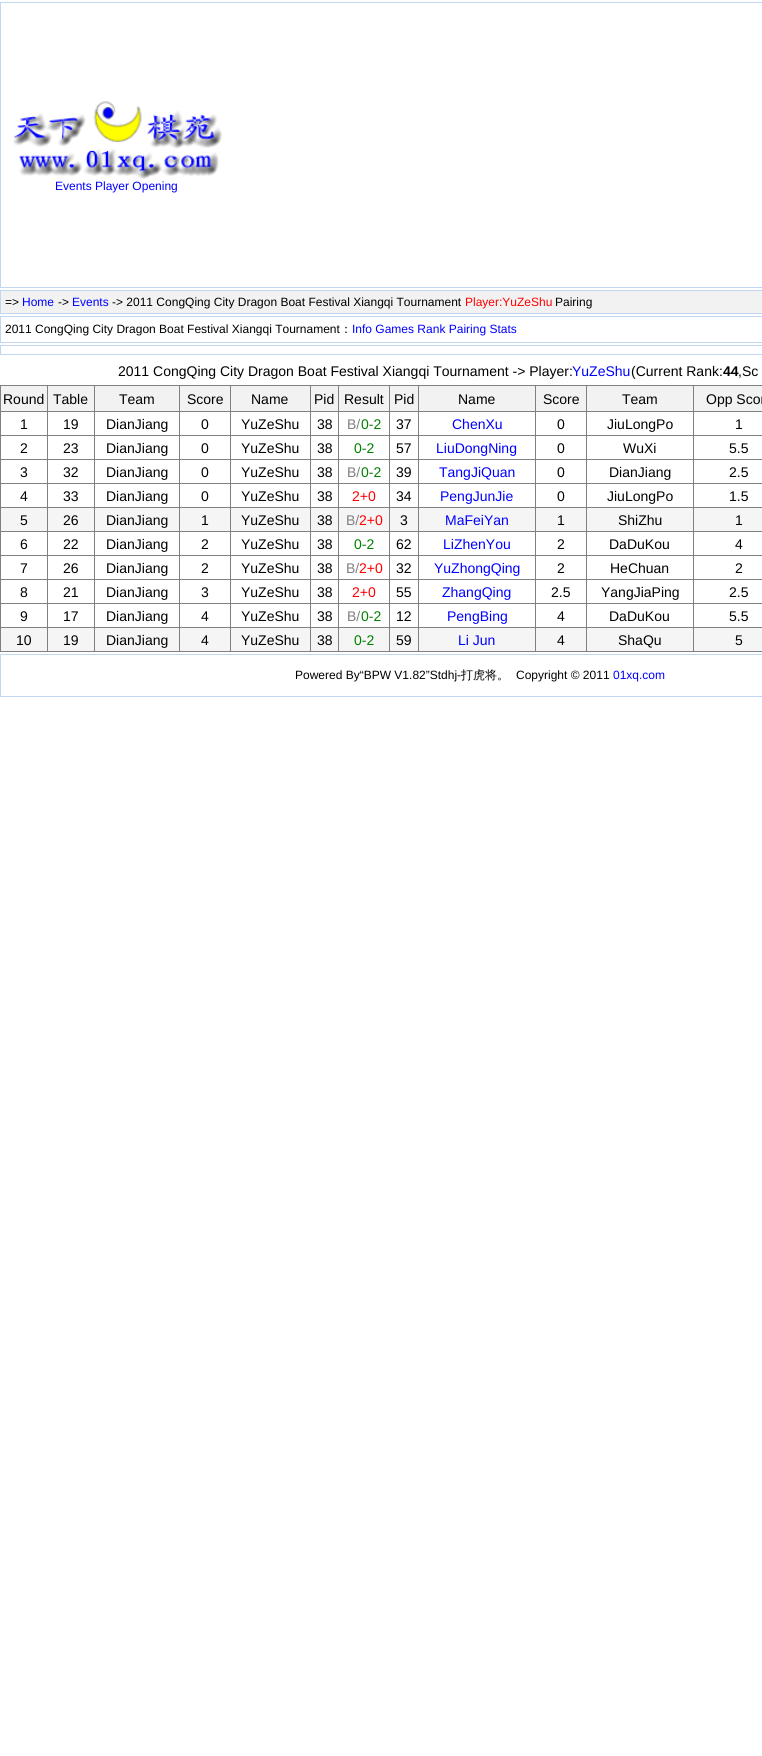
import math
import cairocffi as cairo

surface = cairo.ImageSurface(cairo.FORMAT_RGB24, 762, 1756)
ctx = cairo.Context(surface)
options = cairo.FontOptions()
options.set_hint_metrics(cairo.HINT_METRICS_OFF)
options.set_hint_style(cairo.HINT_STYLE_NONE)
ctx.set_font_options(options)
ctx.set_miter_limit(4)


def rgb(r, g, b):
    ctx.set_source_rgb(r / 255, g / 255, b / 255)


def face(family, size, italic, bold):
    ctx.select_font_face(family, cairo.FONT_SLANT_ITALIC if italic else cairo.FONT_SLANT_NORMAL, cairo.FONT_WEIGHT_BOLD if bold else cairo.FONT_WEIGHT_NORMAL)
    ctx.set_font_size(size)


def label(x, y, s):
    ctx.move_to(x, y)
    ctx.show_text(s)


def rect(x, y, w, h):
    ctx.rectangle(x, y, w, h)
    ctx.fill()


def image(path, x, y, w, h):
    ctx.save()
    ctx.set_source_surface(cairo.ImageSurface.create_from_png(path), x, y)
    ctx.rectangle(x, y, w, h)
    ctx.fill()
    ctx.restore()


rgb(255, 255, 255)
ctx.paint()
ctx.rectangle(0.5, 2.5, 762, 285)
rgb(193, 214, 240)
ctx.set_line_width(1)
ctx.stroke()
image('image0.png', 13, 101, 209, 78)
face('Liberation Sans', 12, 0, 0)
rgb(0, 0, 255)
label(55, 190, 'Events Player Opening')
rgb(242, 242, 242)
ctx.rectangle(0.5, 290.5, 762, 23)
ctx.fill_preserve()
rgb(193, 214, 240)
ctx.stroke()
rgb(0, 0, 0)
label(5, 306, '=>')
rgb(0, 0, 255)
label(22, 306, 'Home')
rgb(0, 0, 0)
label(58, 306, '->')
rgb(0, 0, 255)
label(72, 306, 'Events')
rgb(0, 0, 0)
label(112, 306, '-> 2011 CongQing City Dragon Boat Festival Xiangqi Tournament')
rgb(255, 0, 0)
label(465, 306, 'Player:YuZeShu')
rgb(0, 0, 0)
label(555, 306, 'Pairing')
ctx.rectangle(0.5, 316.5, 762, 26)
rgb(193, 214, 240)
ctx.stroke()
rgb(0, 0, 0)
label(5, 333, '2011 CongQing City Dragon Boat Festival Xiangqi Tournament')
face('WenQuanYi Zen Hei Medium', 12, 0, 0)
label(340, 333, '：')
face('Liberation Sans', 12, 0, 0)
rgb(0, 0, 255)
label(352, 333, 'Info Games Rank Pairing Stats')
ctx.rectangle(0.5, 345.5, 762, 9)
rgb(193, 214, 240)
ctx.stroke()
face('Liberation Sans', 14, 0, 0)
rgb(0, 0, 0)
label(118, 376, '2011 CongQing City Dragon Boat Festival Xiangqi Tournament -> Player:')
rgb(0, 0, 255)
label(572, 376, 'YuZeShu')
rgb(0, 0, 0)
label(631, 376, '(Current Rank:')
face('Liberation Sans', 14, 0, 1)
label(723, 376, '44')
face('Liberation Sans', 14, 0, 0)
label(738, 376, ',Sc')
rgb(128, 128, 128)
rect(0, 385, 762, 1)
rect(0, 651, 762, 1)
rect(0, 385, 1, 267)
rgb(242, 242, 242)
rect(1, 386, 761, 25)
rgb(0, 0, 0)
label(3, 404, 'Round')
rgb(128, 128, 128)
rect(693, 411, 69, 1)
rect(693, 435, 69, 1)
rect(693, 459, 69, 1)
rect(693, 483, 69, 1)
rect(693, 507, 69, 1)
rgb(245, 245, 245)
rect(1, 508, 761, 23)
rgb(128, 128, 128)
rect(693, 531, 69, 1)
rect(693, 555, 69, 1)
rect(693, 579, 69, 1)
rect(693, 603, 69, 1)
rect(693, 627, 69, 1)
rgb(245, 245, 245)
rect(1, 628, 761, 23)
rgb(128, 128, 128)
rect(693, 627, 1, 25)
rect(586, 627, 108, 1)
rect(693, 603, 1, 25)
rect(586, 603, 108, 1)
rect(693, 579, 1, 25)
rect(586, 579, 108, 1)
rect(693, 555, 1, 25)
rect(586, 555, 108, 1)
rect(693, 531, 1, 25)
rect(586, 531, 108, 1)
rect(693, 507, 1, 25)
rect(586, 507, 108, 1)
rect(693, 483, 1, 25)
rect(586, 483, 108, 1)
rect(693, 459, 1, 25)
rect(586, 459, 108, 1)
rect(693, 435, 1, 25)
rect(586, 435, 108, 1)
rect(693, 411, 1, 25)
rect(586, 411, 108, 1)
rect(586, 627, 1, 25)
rect(535, 627, 52, 1)
rect(586, 603, 1, 25)
rect(535, 603, 52, 1)
rect(586, 579, 1, 25)
rect(535, 579, 52, 1)
rect(586, 555, 1, 25)
rect(535, 555, 52, 1)
rect(586, 531, 1, 25)
rect(535, 531, 52, 1)
rect(586, 507, 1, 25)
rect(535, 507, 52, 1)
rect(586, 483, 1, 25)
rect(535, 483, 52, 1)
rect(586, 459, 1, 25)
rect(535, 459, 52, 1)
rect(586, 435, 1, 25)
rect(535, 435, 52, 1)
rect(586, 411, 1, 25)
rect(535, 411, 52, 1)
rect(535, 627, 1, 25)
rect(418, 627, 118, 1)
rect(535, 603, 1, 25)
rect(418, 603, 118, 1)
rect(535, 579, 1, 25)
rect(418, 579, 118, 1)
rect(535, 555, 1, 25)
rect(418, 555, 118, 1)
rect(535, 531, 1, 25)
rect(418, 531, 118, 1)
rect(535, 507, 1, 25)
rect(418, 507, 118, 1)
rect(535, 483, 1, 25)
rect(418, 483, 118, 1)
rect(535, 459, 1, 25)
rect(418, 459, 118, 1)
rect(535, 435, 1, 25)
rect(418, 435, 118, 1)
rect(535, 411, 1, 25)
rect(418, 411, 118, 1)
rect(418, 627, 1, 25)
rect(389, 627, 30, 1)
rect(418, 603, 1, 25)
rect(389, 603, 30, 1)
rect(418, 579, 1, 25)
rect(389, 579, 30, 1)
rect(418, 555, 1, 25)
rect(389, 555, 30, 1)
rect(418, 531, 1, 25)
rect(389, 531, 30, 1)
rect(418, 507, 1, 25)
rect(389, 507, 30, 1)
rect(418, 483, 1, 25)
rect(389, 483, 30, 1)
rect(418, 459, 1, 25)
rect(389, 459, 30, 1)
rect(418, 435, 1, 25)
rect(389, 435, 30, 1)
rect(418, 411, 1, 25)
rect(389, 411, 30, 1)
rect(389, 627, 1, 25)
rect(338, 627, 52, 1)
rect(389, 603, 1, 25)
rect(338, 603, 52, 1)
rect(389, 579, 1, 25)
rect(338, 579, 52, 1)
rect(389, 555, 1, 25)
rect(338, 555, 52, 1)
rect(389, 531, 1, 25)
rect(338, 531, 52, 1)
rect(389, 507, 1, 25)
rect(338, 507, 52, 1)
rect(389, 483, 1, 25)
rect(338, 483, 52, 1)
rect(389, 459, 1, 25)
rect(338, 459, 52, 1)
rect(389, 435, 1, 25)
rect(338, 435, 52, 1)
rect(389, 411, 1, 25)
rect(338, 411, 52, 1)
rect(338, 627, 1, 25)
rect(310, 627, 29, 1)
rect(338, 603, 1, 25)
rect(310, 603, 29, 1)
rect(338, 579, 1, 25)
rect(310, 579, 29, 1)
rect(338, 555, 1, 25)
rect(310, 555, 29, 1)
rect(338, 531, 1, 25)
rect(310, 531, 29, 1)
rect(338, 507, 1, 25)
rect(310, 507, 29, 1)
rect(338, 483, 1, 25)
rect(310, 483, 29, 1)
rect(338, 459, 1, 25)
rect(310, 459, 29, 1)
rect(338, 435, 1, 25)
rect(310, 435, 29, 1)
rect(338, 411, 1, 25)
rect(310, 411, 29, 1)
rect(310, 627, 1, 25)
rect(230, 627, 81, 1)
rect(310, 603, 1, 25)
rect(230, 603, 81, 1)
rect(310, 579, 1, 25)
rect(230, 579, 81, 1)
rect(310, 555, 1, 25)
rect(230, 555, 81, 1)
rect(310, 531, 1, 25)
rect(230, 531, 81, 1)
rect(310, 507, 1, 25)
rect(230, 507, 81, 1)
rect(310, 483, 1, 25)
rect(230, 483, 81, 1)
rect(310, 459, 1, 25)
rect(230, 459, 81, 1)
rect(310, 435, 1, 25)
rect(230, 435, 81, 1)
rect(310, 411, 1, 25)
rect(230, 411, 81, 1)
rect(230, 627, 1, 25)
rect(179, 627, 52, 1)
rect(230, 603, 1, 25)
rect(179, 603, 52, 1)
rect(230, 579, 1, 25)
rect(179, 579, 52, 1)
rect(230, 555, 1, 25)
rect(179, 555, 52, 1)
rect(230, 531, 1, 25)
rect(179, 531, 52, 1)
rect(230, 507, 1, 25)
rect(179, 507, 52, 1)
rect(230, 483, 1, 25)
rect(179, 483, 52, 1)
rect(230, 459, 1, 25)
rect(179, 459, 52, 1)
rect(230, 435, 1, 25)
rect(179, 435, 52, 1)
rect(230, 411, 1, 25)
rect(179, 411, 52, 1)
rect(179, 627, 1, 25)
rect(94, 627, 86, 1)
rect(179, 603, 1, 25)
rect(94, 603, 86, 1)
rect(179, 579, 1, 25)
rect(94, 579, 86, 1)
rect(179, 555, 1, 25)
rect(94, 555, 86, 1)
rect(179, 531, 1, 25)
rect(94, 531, 86, 1)
rect(179, 507, 1, 25)
rect(94, 507, 86, 1)
rect(179, 483, 1, 25)
rect(94, 483, 86, 1)
rect(179, 459, 1, 25)
rect(94, 459, 86, 1)
rect(179, 435, 1, 25)
rect(94, 435, 86, 1)
rect(179, 411, 1, 25)
rect(94, 411, 86, 1)
rect(94, 627, 1, 25)
rect(47, 627, 48, 1)
rect(94, 603, 1, 25)
rect(47, 603, 48, 1)
rect(94, 579, 1, 25)
rect(47, 579, 48, 1)
rect(94, 555, 1, 25)
rect(47, 555, 48, 1)
rect(94, 531, 1, 25)
rect(47, 531, 48, 1)
rect(94, 507, 1, 25)
rect(47, 507, 48, 1)
rect(94, 483, 1, 25)
rect(47, 483, 48, 1)
rect(94, 459, 1, 25)
rect(47, 459, 48, 1)
rect(94, 435, 1, 25)
rect(47, 435, 48, 1)
rect(94, 411, 1, 25)
rect(47, 411, 48, 1)
rect(47, 627, 1, 25)
rect(0, 627, 48, 1)
rect(47, 603, 1, 25)
rect(0, 603, 48, 1)
rect(47, 579, 1, 25)
rect(0, 579, 48, 1)
rect(47, 555, 1, 25)
rect(0, 555, 48, 1)
rect(47, 531, 1, 25)
rect(0, 531, 48, 1)
rect(47, 507, 1, 25)
rect(0, 507, 48, 1)
rect(47, 483, 1, 25)
rect(0, 483, 48, 1)
rect(47, 459, 1, 25)
rect(0, 459, 48, 1)
rect(47, 435, 1, 25)
rect(0, 435, 48, 1)
rect(47, 411, 1, 25)
rect(0, 411, 48, 1)
rect(47, 385, 1, 27)
rgb(0, 0, 0)
label(53, 404, 'Table')
rgb(128, 128, 128)
rect(94, 385, 1, 27)
rgb(0, 0, 0)
label(119, 404, 'Team')
rgb(128, 128, 128)
rect(179, 385, 1, 27)
rgb(0, 0, 0)
label(187, 404, 'Score')
rgb(128, 128, 128)
rect(230, 385, 1, 27)
rgb(0, 0, 0)
label(251, 404, 'Name')
rgb(128, 128, 128)
rect(310, 385, 1, 27)
rgb(0, 0, 0)
label(314, 404, 'Pid')
rgb(128, 128, 128)
rect(338, 385, 1, 27)
rgb(0, 0, 0)
label(344, 404, 'Result')
rgb(128, 128, 128)
rect(389, 385, 1, 27)
rgb(0, 0, 0)
label(394, 404, 'Pid')
rgb(128, 128, 128)
rect(418, 385, 1, 27)
rgb(0, 0, 0)
label(458, 404, 'Name')
rgb(128, 128, 128)
rect(535, 385, 1, 27)
rgb(0, 0, 0)
label(543, 404, 'Score')
rgb(128, 128, 128)
rect(586, 385, 1, 27)
rgb(0, 0, 0)
label(622, 404, 'Team')
rgb(128, 128, 128)
rect(693, 385, 1, 27)
rgb(0, 0, 0)
label(706, 404, 'Opp Scor')
label(20, 429, '1')
label(63, 429, '19')
label(106, 429, 'DianJiang')
label(201, 429, '0')
label(241, 429, 'YuZeShu')
label(317, 429, '38')
rgb(128, 128, 128)
label(347, 429, 'B/')
rgb(0, 128, 0)
label(361, 429, '0-2')
rgb(0, 0, 0)
label(396, 429, '37')
rgb(0, 0, 255)
label(452, 429, 'ChenXu')
rgb(0, 0, 0)
label(557, 429, '0')
label(607, 429, 'JiuLongPo')
label(735, 429, '1')
label(20, 453, '2')
label(63, 453, '23')
label(106, 453, 'DianJiang')
label(201, 453, '0')
label(241, 453, 'YuZeShu')
label(317, 453, '38')
rgb(0, 128, 0)
label(354, 453, '0-2')
rgb(0, 0, 0)
label(396, 453, '57')
rgb(0, 0, 255)
label(436, 453, 'LiuDongNing')
rgb(0, 0, 0)
label(557, 453, '0')
label(623, 453, 'WuXi')
label(729, 453, '5.5')
label(20, 477, '3')
label(63, 477, '32')
label(106, 477, 'DianJiang')
label(201, 477, '0')
label(241, 477, 'YuZeShu')
label(317, 477, '38')
rgb(128, 128, 128)
label(347, 477, 'B/')
rgb(0, 128, 0)
label(361, 477, '0-2')
rgb(0, 0, 0)
label(396, 477, '39')
rgb(0, 0, 255)
label(439, 477, 'TangJiQuan')
rgb(0, 0, 0)
label(557, 477, '0')
label(609, 477, 'DianJiang')
label(729, 477, '2.5')
label(20, 501, '4')
label(63, 501, '33')
label(106, 501, 'DianJiang')
label(201, 501, '0')
label(241, 501, 'YuZeShu')
label(317, 501, '38')
rgb(255, 0, 0)
label(352, 501, '2+0')
rgb(0, 0, 0)
label(396, 501, '34')
rgb(0, 0, 255)
label(440, 501, 'PengJunJie')
rgb(0, 0, 0)
label(557, 501, '0')
label(607, 501, 'JiuLongPo')
label(729, 501, '1.5')
label(20, 525, '5')
label(63, 525, '26')
label(106, 525, 'DianJiang')
label(201, 525, '1')
label(241, 525, 'YuZeShu')
label(317, 525, '38')
rgb(128, 128, 128)
label(346, 525, 'B/')
rgb(255, 0, 0)
label(359, 525, '2+0')
rgb(0, 0, 0)
label(400, 525, '3')
rgb(0, 0, 255)
label(445, 525, 'MaFeiYan')
rgb(0, 0, 0)
label(557, 525, '1')
label(618, 525, 'ShiZhu')
label(735, 525, '1')
label(20, 549, '6')
label(63, 549, '22')
label(106, 549, 'DianJiang')
label(201, 549, '2')
label(241, 549, 'YuZeShu')
label(317, 549, '38')
rgb(0, 128, 0)
label(354, 549, '0-2')
rgb(0, 0, 0)
label(396, 549, '62')
rgb(0, 0, 255)
label(443, 549, 'LiZhenYou')
rgb(0, 0, 0)
label(557, 549, '2')
label(609, 549, 'DaDuKou')
label(735, 549, '4')
label(20, 573, '7')
label(63, 573, '26')
label(106, 573, 'DianJiang')
label(201, 573, '2')
label(241, 573, 'YuZeShu')
label(317, 573, '38')
rgb(128, 128, 128)
label(346, 573, 'B/')
rgb(255, 0, 0)
label(359, 573, '2+0')
rgb(0, 0, 0)
label(396, 573, '32')
rgb(0, 0, 255)
label(434, 573, 'YuZhongQing')
rgb(0, 0, 0)
label(557, 573, '2')
label(610, 573, 'HeChuan')
label(735, 573, '2')
label(20, 597, '8')
label(63, 597, '21')
label(106, 597, 'DianJiang')
label(201, 597, '3')
label(241, 597, 'YuZeShu')
label(317, 597, '38')
rgb(255, 0, 0)
label(352, 597, '2+0')
rgb(0, 0, 0)
label(396, 597, '55')
rgb(0, 0, 255)
label(442, 597, 'ZhangQing')
rgb(0, 0, 0)
label(551, 597, '2.5')
label(601, 597, 'YangJiaPing')
label(729, 597, '2.5')
label(20, 621, '9')
label(63, 621, '17')
label(106, 621, 'DianJiang')
label(201, 621, '4')
label(241, 621, 'YuZeShu')
label(317, 621, '38')
rgb(128, 128, 128)
label(347, 621, 'B/')
rgb(0, 128, 0)
label(361, 621, '0-2')
rgb(0, 0, 0)
label(396, 621, '12')
rgb(0, 0, 255)
label(447, 621, 'PengBing')
rgb(0, 0, 0)
label(557, 621, '4')
label(609, 621, 'DaDuKou')
label(729, 621, '5.5')
label(16, 645, '10')
label(63, 645, '19')
label(106, 645, 'DianJiang')
label(201, 645, '4')
label(241, 645, 'YuZeShu')
label(317, 645, '38')
rgb(0, 128, 0)
label(354, 645, '0-2')
rgb(0, 0, 0)
label(396, 645, '59')
rgb(0, 0, 255)
label(458, 645, 'Li Jun')
rgb(0, 0, 0)
label(557, 645, '4')
label(618, 645, 'ShaQu')
label(735, 645, '5')
ctx.rectangle(0.5, 654.5, 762, 42)
rgb(193, 214, 240)
ctx.stroke()
face('Liberation Sans', 12, 0, 0)
rgb(0, 0, 0)
label(295, 679, 'Powered By“BPW V1.82”Stdhj-')
face('WenQuanYi Zen Hei Medium', 12, 0, 0)
label(461, 679, '打虎将。')
face('Liberation Sans', 12, 0, 0)
label(516, 679, 'Copyright © 2011')
rgb(0, 0, 255)
label(613, 679, '01xq.com')
surface.write_to_png('render.png')
